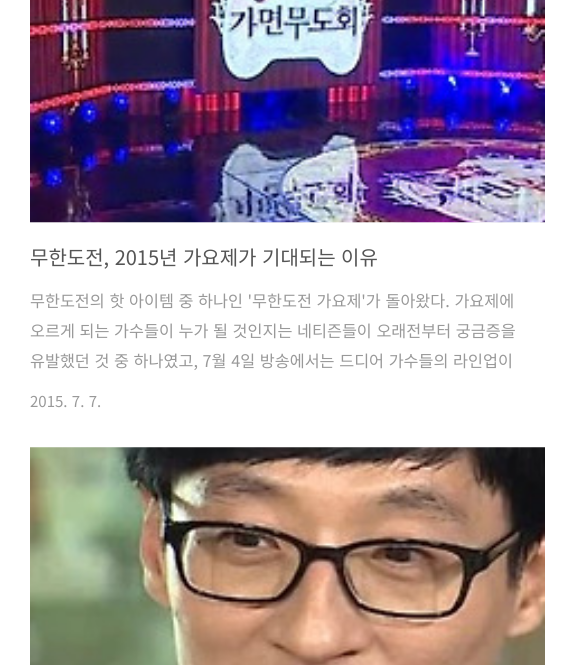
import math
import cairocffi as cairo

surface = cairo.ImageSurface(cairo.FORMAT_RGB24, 574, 665)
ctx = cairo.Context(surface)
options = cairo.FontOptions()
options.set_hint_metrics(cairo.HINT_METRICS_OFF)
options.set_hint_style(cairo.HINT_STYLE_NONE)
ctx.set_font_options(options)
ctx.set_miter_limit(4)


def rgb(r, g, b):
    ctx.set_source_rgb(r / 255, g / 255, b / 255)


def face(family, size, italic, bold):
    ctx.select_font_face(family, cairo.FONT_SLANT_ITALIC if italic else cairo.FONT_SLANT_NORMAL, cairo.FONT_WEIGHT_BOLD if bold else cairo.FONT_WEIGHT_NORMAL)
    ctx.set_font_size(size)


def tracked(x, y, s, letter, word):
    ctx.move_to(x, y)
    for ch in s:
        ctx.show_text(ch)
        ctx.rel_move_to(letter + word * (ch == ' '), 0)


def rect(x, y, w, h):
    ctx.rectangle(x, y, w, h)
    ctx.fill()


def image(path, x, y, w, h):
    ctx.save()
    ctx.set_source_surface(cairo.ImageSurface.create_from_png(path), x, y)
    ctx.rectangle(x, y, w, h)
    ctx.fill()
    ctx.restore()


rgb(255, 255, 255)
ctx.paint()
rgb(248, 248, 248)
rect(30, 222, 515, 1)
image('image0.png', 30, 0, 515, 223)
face('Noto Sans KR', 20, 0, 0)
rgb(85, 85, 85)
tracked(30, 265, '무한도전, 2015년 가요제가 기대되는 이유', 0, 1)
face('Noto Sans KR', 16.25, 0, 0)
rgb(153, 153, 153)
tracked(30, 307, '무한도전의 핫 아이템 중 하나인 \'무한도전 가요제\'가 돌아왔다. 가요제에', 0, 1)
tracked(30, 337, '오르게 되는 가수들이 누가 될 것인지는 네티즌들이 오래전부터 궁금증을', 0, 1)
tracked(30, 367, '유발했던 것 중 하나였고, 7월 4일 방송에서는 드디어 가수들의 라인업이', 0, 1)
face('Noto Sans KR', 15, 0, 0)
tracked(30, 407, '2015. 7. 7.', 0, 1)
image('image1.png', 30, 447, 515, 218)
surface.write_to_png('render.png')
